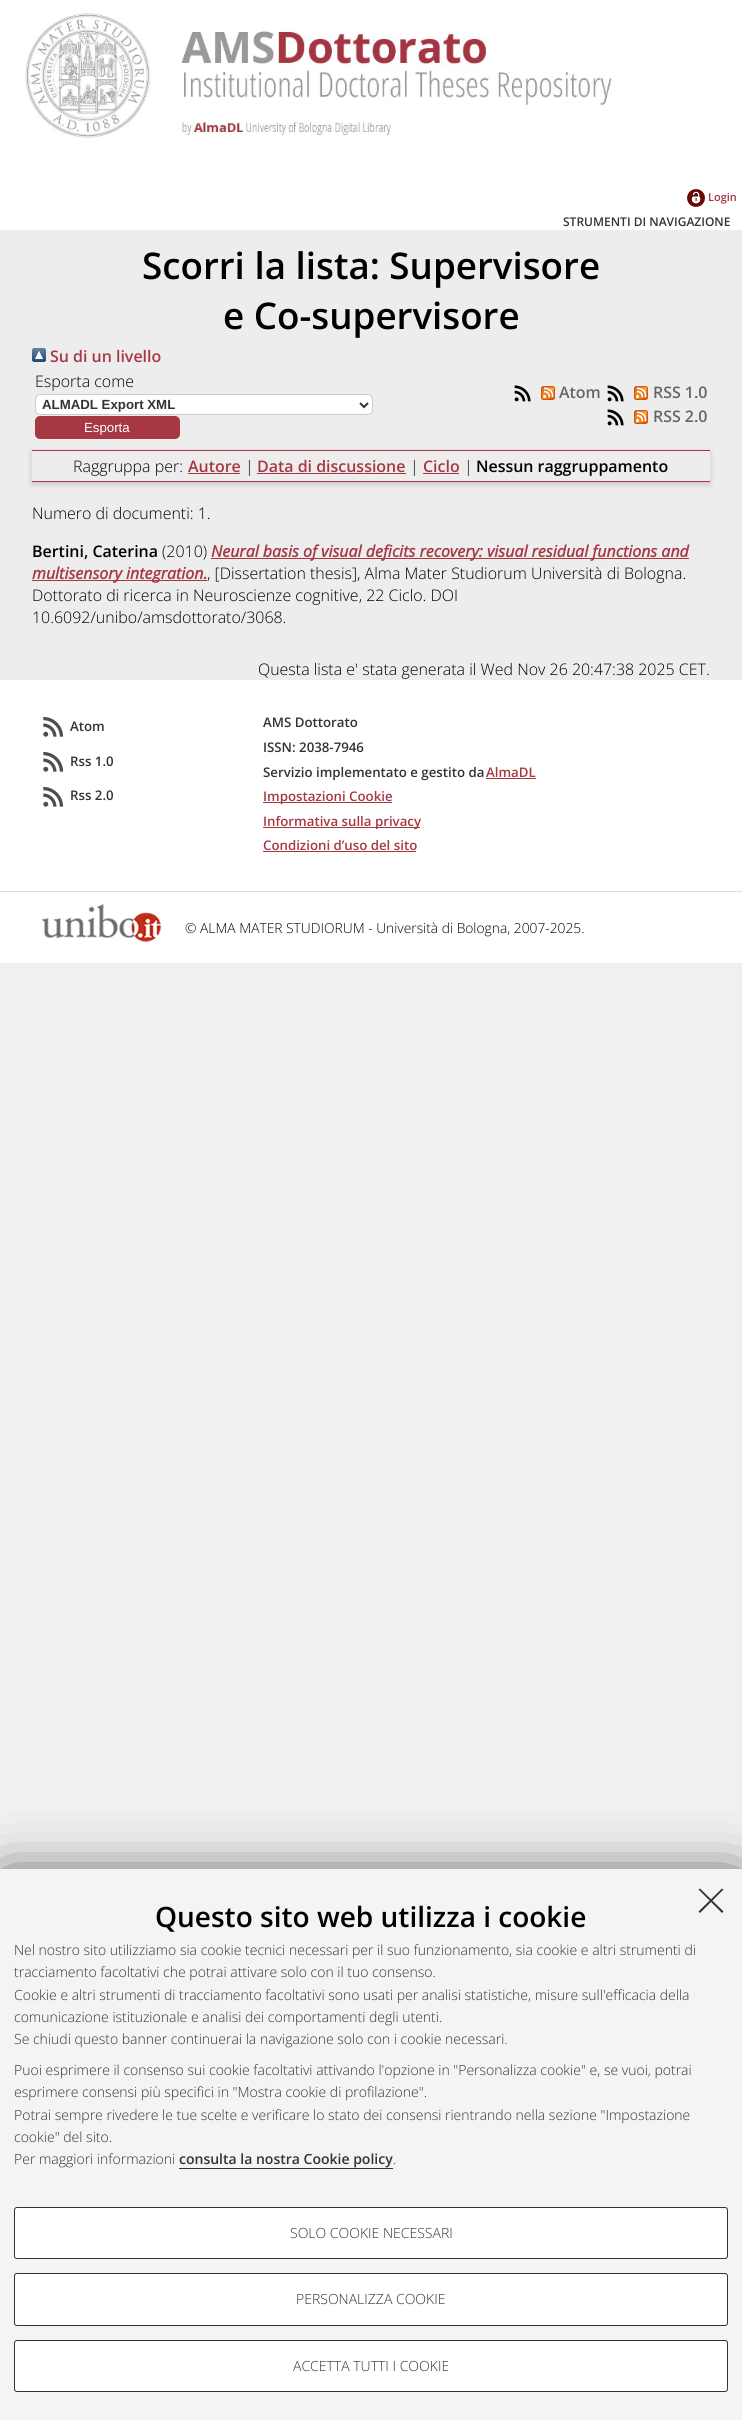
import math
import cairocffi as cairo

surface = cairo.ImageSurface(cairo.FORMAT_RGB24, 742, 2420)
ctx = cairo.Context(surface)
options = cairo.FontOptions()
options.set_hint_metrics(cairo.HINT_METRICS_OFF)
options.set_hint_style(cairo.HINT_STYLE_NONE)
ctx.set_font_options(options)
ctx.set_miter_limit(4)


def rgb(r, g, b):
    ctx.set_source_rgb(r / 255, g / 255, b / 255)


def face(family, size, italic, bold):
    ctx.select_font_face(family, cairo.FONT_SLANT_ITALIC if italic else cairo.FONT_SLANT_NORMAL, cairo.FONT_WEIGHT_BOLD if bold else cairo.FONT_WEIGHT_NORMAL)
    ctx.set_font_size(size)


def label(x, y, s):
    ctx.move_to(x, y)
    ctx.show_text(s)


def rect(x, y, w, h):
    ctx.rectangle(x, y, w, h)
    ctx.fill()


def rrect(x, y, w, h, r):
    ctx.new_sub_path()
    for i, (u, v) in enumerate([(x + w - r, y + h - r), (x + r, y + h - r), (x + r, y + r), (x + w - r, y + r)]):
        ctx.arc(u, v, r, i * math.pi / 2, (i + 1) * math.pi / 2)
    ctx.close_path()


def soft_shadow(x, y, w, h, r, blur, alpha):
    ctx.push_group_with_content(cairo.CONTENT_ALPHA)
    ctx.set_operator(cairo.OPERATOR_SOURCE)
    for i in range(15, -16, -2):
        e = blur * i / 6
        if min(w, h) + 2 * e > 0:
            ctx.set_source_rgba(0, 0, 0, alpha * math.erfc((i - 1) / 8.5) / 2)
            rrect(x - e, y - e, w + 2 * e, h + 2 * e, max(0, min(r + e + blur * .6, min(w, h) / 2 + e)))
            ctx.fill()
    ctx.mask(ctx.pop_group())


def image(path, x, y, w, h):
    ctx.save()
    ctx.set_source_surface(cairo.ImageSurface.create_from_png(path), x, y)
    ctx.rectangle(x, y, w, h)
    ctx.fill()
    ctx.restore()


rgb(240, 240, 240)
ctx.paint()
rgb(237, 237, 237)
rect(0, 230, 742, 450)
rgb(255, 255, 255)
rect(0, 0, 742, 230)
image('image0.png', 25, 12, 587, 126)
image('image1.png', 687, 189, 18, 18)
face('Open Sans SemiBold', 11, 0, 0)
rgb(167, 55, 67)
label(708, 201, 'Login')
face('Open Sans SemiBold', 12, 0, 0)
rgb(51, 51, 51)
label(563, 226, 'STRUMENTI DI NAVIGAZIONE')
face('Open Sans SemiBold', 36.75, 0, 0)
rgb(0, 0, 0)
label(142, 279, 'Scorri la lista: Supervisore')
label(223, 329, 'e Co-supervisore')
image('image2.png', 32, 348, 14, 14)
face('Open Sans SemiBold', 15.95, 0, 0)
rgb(167, 55, 67)
label(50, 362, 'Su di un livello')
face('Open Sans Light', 15.95, 0, 0)
rgb(0, 0, 0)
label(35, 387, 'Esporta come')
rgb(255, 255, 255)
rrect(35.5, 394.5, 337, 20, 4.5)
ctx.fill_preserve()
rgb(204, 204, 204)
ctx.set_line_width(1)
ctx.stroke()
ctx.new_path()
ctx.move_to(360, 403)
ctx.line_to(364, 407)
ctx.line_to(368, 403)
rgb(51, 51, 51)
ctx.set_line_width(2)
ctx.stroke()
face('Liberation Sans', 13.25, 0, 1)
label(42, 409, 'ALMADL Export XML')
rgb(167, 55, 67)
rrect(36, 417, 143, 21, 4)
ctx.fill_preserve()
ctx.stroke()
face('Liberation Sans', 13.25, 0, 0)
rgb(255, 255, 255)
label(84, 432, 'Esporta')
image('image3.png', 514, 385, 17, 17)
image('image4.png', 541, 386, 14, 14)
face('Open Sans SemiBold', 15.95, 0, 0)
rgb(102, 102, 102)
label(559, 398, 'Atom')
image('image3.png', 607, 385, 17, 17)
image('image4.png', 634, 386, 14, 14)
label(653, 398, 'RSS 1.0')
image('image3.png', 607, 409, 17, 17)
image('image4.png', 634, 410, 14, 14)
label(653, 422, 'RSS 2.0')
ctx.save()
ctx.set_fill_rule(cairo.FILL_RULE_EVEN_ODD)
ctx.new_path()
ctx.move_to(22, 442)
ctx.line_to(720, 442)
ctx.line_to(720, 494)
ctx.line_to(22, 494)
ctx.close_path()
ctx.move_to(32, 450)
ctx.line_to(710, 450)
ctx.line_to(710, 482)
ctx.line_to(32, 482)
ctx.close_path()
ctx.clip()
rgb(100, 100, 100)
soft_shadow(32, 452, 678, 32, 0, 3, 0.3)
ctx.restore()
rgb(167, 55, 67)
rect(32, 450, 678, 1)
rect(32, 481, 678, 1)
face('Open Sans Light', 15.95, 0, 0)
rgb(0, 0, 0)
label(73, 472, 'Raggruppa per:')
face('Open Sans SemiBold', 15.95, 0, 0)
rgb(167, 55, 67)
label(188, 472, 'Autore')
rect(188, 473, 52, 1)
face('Open Sans Light', 15.95, 0, 0)
rgb(0, 0, 0)
label(245, 472, '|')
face('Open Sans SemiBold', 15.95, 0, 0)
rgb(167, 55, 67)
label(257, 472, 'Data di discussione')
rect(257, 473, 149, 1)
face('Open Sans Light', 15.95, 0, 0)
rgb(0, 0, 0)
label(410, 472, '|')
face('Open Sans SemiBold', 15.95, 0, 0)
rgb(167, 55, 67)
label(423, 472, 'Ciclo')
rect(423, 473, 36, 1)
face('Open Sans Light', 15.95, 0, 0)
rgb(0, 0, 0)
label(464, 472, '|')
face('Open Sans SemiBold', 15.95, 0, 0)
label(476, 472, 'Nessun raggruppamento')
face('Open Sans Light', 15.95, 0, 0)
label(32, 519, 'Numero di documenti: 1.')
face('Open Sans SemiBold', 15.95, 0, 0)
label(32, 557, 'Bertini, Caterina')
face('Open Sans Light', 15.95, 0, 0)
label(162, 557, '(2010)')
rgb(167, 55, 67)
rect(211, 558, 478, 1)
face('Open Sans', 15.95, 1, 1)
label(211, 557, 'Neural basis of visual deficits recovery: visual residual functions and')
rect(32, 580, 175, 1)
label(32, 579, 'multisensory integration.')
face('Open Sans Light', 15.95, 0, 0)
rgb(0, 0, 0)
label(207, 579, ', [Dissertation thesis], Alma Mater Studiorum Università di Bologna.')
label(32, 601, 'Dottorato di ricerca in Neuroscienze cognitive, 22 Ciclo. DOI')
label(32, 623, '10.6092/unibo/amsdottorato/3068.')
label(258, 675, 'Questa lista e\' stata generata il Wed Nov 26 20:47:38 2025 CET.')
rgb(255, 255, 255)
rect(0, 680, 742, 283)
image('image5.png', 43, 716, 21, 21)
face('Open Sans SemiBold', 13.25, 0, 0)
rgb(51, 51, 51)
label(70, 731, 'Atom')
image('image5.png', 43, 751, 21, 21)
label(70, 766, 'Rss 1.0')
image('image5.png', 43, 786, 21, 21)
label(70, 800, 'Rss 2.0')
label(263, 727, 'AMS Dottorato')
label(263, 752, 'ISSN: 2038-7946')
label(263, 777, 'Servizio implementato e gestito da')
rgb(167, 55, 67)
label(486, 777, 'AlmaDL')
rect(486, 778, 50, 1)
rect(263, 802, 129, 1)
label(263, 801, 'Impostazioni Cookie')
rect(263, 827, 157, 1)
label(263, 826, 'Informativa sulla privacy')
label(263, 850, 'Condizioni d’uso del sito')
rect(263, 851, 153, 1)
rgb(221, 221, 221)
rect(0, 891, 742, 1)
image('image6.png', 42, 904, 119, 38)
face('Open Sans Light', 13.8, 0, 0)
rgb(0, 0, 0)
label(185, 933, '© ALMA MATER STUDIORUM - Università di Bologna, 2007-2025.')
rgb(0, 0, 0)
soft_shadow(6, 1887, 730, 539, 0, 30, 1)
rgb(244, 244, 244)
rect(0, 1869, 742, 551)
rgb(51, 51, 51)
ctx.new_path()
ctx.move_to(722, 1888.5)
ctx.line_to(723.5, 1889.5)
ctx.line_to(700, 1913)
ctx.line_to(698.5, 1911.5)
ctx.close_path()
ctx.fill()
ctx.new_path()
ctx.move_to(698.5, 1889.5)
ctx.line_to(700, 1888.5)
ctx.line_to(723.5, 1911.5)
ctx.line_to(722, 1913)
ctx.close_path()
ctx.fill()
face('Open Sans SemiBold', 28, 0, 0)
rgb(0, 0, 0)
label(155, 1927, 'Questo sito web utilizza i cookie')
face('Open Sans Light', 14, 0, 0)
rgb(51, 51, 51)
label(14, 1955, 'Nel nostro sito utilizziamo sia cookie tecnici necessari per il suo funzionamento, sia cookie e altri strumenti di')
label(14, 1977, 'tracciamento facoltativi che potrai attivare solo con il tuo consenso.')
label(14, 2000, 'Cookie e altri strumenti di tracciamento facoltativi sono usati per analisi statistiche, misure sull\'efficacia della')
label(14, 2022, 'comunicazione istituzionale e analisi dei comportamenti degli utenti.')
label(14, 2044, 'Se chiudi questo banner continuerai la navigazione solo con i cookie necessari.')
label(14, 2075, 'Puoi esprimere il consenso sui cookie facoltativi attivando l\'opzione in "Personalizza cookie" e, se vuoi, potrai')
label(14, 2097, 'esprimere consensi più specifici in "Mostra cookie di profilazione".')
label(14, 2120, 'Potrai sempre rivedere le tue scelte e verificare lo stato dei consensi rientrando nella sezione "Impostazione')
label(14, 2142, 'cookie" del sito.')
label(14, 2164, 'Per maggiori informazioni')
face('Open Sans SemiBold', 14, 0, 0)
label(179, 2164, 'consulta la nostra Cookie policy')
rect(179, 2168, 214, 1)
face('Open Sans Light', 14, 0, 0)
label(393, 2164, '.')
rgb(255, 255, 255)
rrect(14.5, 2207.5, 713, 51, 2.5)
ctx.fill_preserve()
rgb(51, 51, 51)
ctx.set_line_width(1)
ctx.stroke()
label(290, 2238, 'SOLO COOKIE NECESSARI')
rgb(255, 255, 255)
rrect(14.5, 2273.5, 713, 52, 2.5)
ctx.fill_preserve()
rgb(51, 51, 51)
ctx.stroke()
label(296, 2304, 'PERSONALIZZA COOKIE')
rgb(255, 255, 255)
rrect(14.5, 2340.5, 713, 51, 2.5)
ctx.fill_preserve()
rgb(51, 51, 51)
ctx.stroke()
label(293, 2371, 'ACCETTA TUTTI I COOKIE')
surface.write_to_png('render.png')
